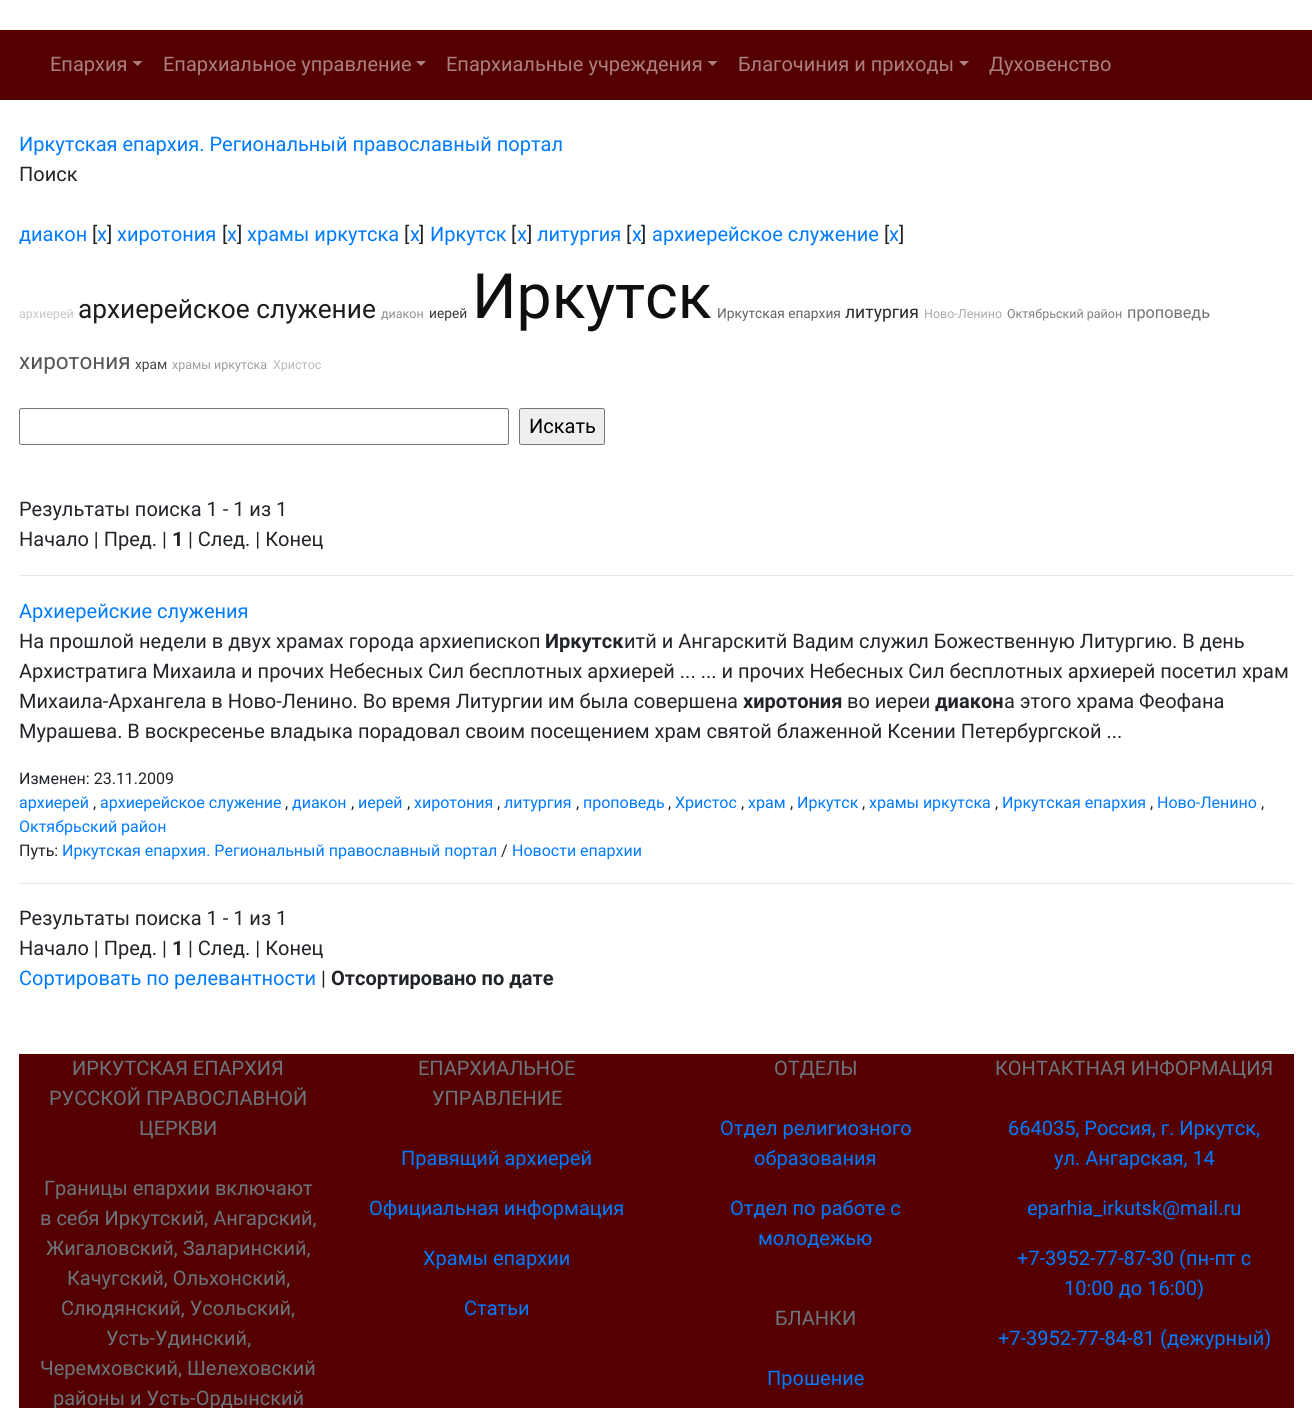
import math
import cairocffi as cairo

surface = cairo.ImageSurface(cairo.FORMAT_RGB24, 1312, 1408)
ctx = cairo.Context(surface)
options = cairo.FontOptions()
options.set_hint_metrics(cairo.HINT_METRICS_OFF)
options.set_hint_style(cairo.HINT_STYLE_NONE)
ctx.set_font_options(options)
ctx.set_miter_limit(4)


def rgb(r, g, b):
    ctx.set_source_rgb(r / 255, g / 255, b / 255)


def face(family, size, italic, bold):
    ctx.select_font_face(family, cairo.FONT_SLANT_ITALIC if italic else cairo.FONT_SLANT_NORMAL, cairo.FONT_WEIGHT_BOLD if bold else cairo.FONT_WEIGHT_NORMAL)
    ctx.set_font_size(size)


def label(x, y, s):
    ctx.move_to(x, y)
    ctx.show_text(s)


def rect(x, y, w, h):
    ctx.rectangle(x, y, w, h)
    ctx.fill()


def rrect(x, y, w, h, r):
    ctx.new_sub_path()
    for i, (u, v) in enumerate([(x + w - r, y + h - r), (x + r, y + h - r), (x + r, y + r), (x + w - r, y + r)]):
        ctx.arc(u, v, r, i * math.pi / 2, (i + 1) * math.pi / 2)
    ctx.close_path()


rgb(255, 255, 255)
ctx.paint()
rgb(85, 0, 0)
rect(0, 30, 1312, 70)
face('Roboto', 20, 0, 0)
rgb(170, 128, 128)
label(50, 71, 'Епархия')
ctx.new_path()
ctx.move_to(132.5, 61)
ctx.line_to(142.5, 61)
ctx.line_to(137.5, 66)
ctx.close_path()
ctx.fill()
label(163, 71, 'Епархиальное управление')
ctx.new_path()
ctx.move_to(416, 61)
ctx.line_to(426, 61)
ctx.line_to(421, 66)
ctx.close_path()
ctx.fill()
label(446, 71, 'Епархиальные учреждения')
ctx.new_path()
ctx.move_to(707.5, 61)
ctx.line_to(717.5, 61)
ctx.line_to(712.5, 66)
ctx.close_path()
ctx.fill()
label(738, 71, 'Благочиния и приходы')
ctx.new_path()
ctx.move_to(959, 61)
ctx.line_to(969, 61)
ctx.line_to(964, 66)
ctx.close_path()
ctx.fill()
label(989, 71, 'Духовенство')
rgb(0, 123, 255)
label(19, 151, 'Иркутская епархия. Региональный православный портал')
rgb(33, 37, 41)
label(19, 181, 'Поиск')
rgb(0, 123, 255)
label(19, 241, 'диакон')
rgb(33, 37, 41)
label(92, 241, '[')
rgb(0, 123, 255)
label(97, 241, 'x')
rgb(33, 37, 41)
label(107, 241, ']')
rgb(0, 123, 255)
label(117, 241, 'хиротония')
rgb(33, 37, 41)
label(222, 241, '[')
rgb(0, 123, 255)
label(227, 241, 'x')
rgb(33, 37, 41)
label(237, 241, ']')
rgb(0, 123, 255)
label(247, 241, 'храмы иркутска')
rgb(33, 37, 41)
label(404, 241, '[')
rgb(0, 123, 255)
label(410, 241, 'x')
rgb(33, 37, 41)
label(419, 241, ']')
rgb(0, 123, 255)
label(430, 241, 'Иркутск')
rgb(33, 37, 41)
label(511, 241, '[')
rgb(0, 123, 255)
label(517, 241, 'x')
rgb(33, 37, 41)
label(527, 241, ']')
rgb(0, 123, 255)
label(537, 241, 'литургия')
rgb(33, 37, 41)
label(626, 241, '[')
rgb(0, 123, 255)
label(632, 241, 'x')
rgb(33, 37, 41)
label(641, 241, ']')
rgb(0, 123, 255)
label(652, 241, 'архиерейское служение')
rgb(33, 37, 41)
label(884, 241, '[')
rgb(0, 123, 255)
label(889, 241, 'x')
rgb(33, 37, 41)
label(899, 241, ']')
face('Roboto', 12.5, 0, 0)
rgb(200, 200, 200)
label(19, 318, 'архиерей')
face('Roboto', 26.25, 0, 0)
rgb(28, 28, 28)
label(78, 318, 'архиерейское служение')
face('Roboto', 12.5, 0, 0)
rgb(142, 142, 142)
label(381, 318, 'диакон')
face('Roboto', 13.75, 0, 0)
rgb(57, 57, 57)
label(429, 318, 'иерей')
face('Roboto', 62.5, 0, 0)
rgb(14, 14, 14)
label(472, 318, 'Иркутск')
face('Roboto', 13.75, 0, 0)
rgb(100, 100, 100)
label(717, 318, 'Иркутская епархия')
face('Roboto', 17.5, 0, 0)
rgb(42, 42, 42)
label(845, 318, 'литургия')
face('Roboto', 12.5, 0, 0)
rgb(171, 171, 171)
label(924, 318, 'Ново-Ленино')
rgb(128, 128, 128)
label(1007, 318, 'Октябрьский район')
face('Roboto', 16.25, 0, 0)
rgb(114, 114, 114)
label(1127, 318, 'проповедь')
face('Roboto', 22.5, 0, 0)
rgb(85, 85, 85)
label(19, 369, 'хиротония')
face('Roboto', 13.75, 0, 0)
rgb(71, 71, 71)
label(135, 369, 'храм')
face('Roboto', 12.5, 0, 0)
rgb(157, 157, 157)
label(172, 369, 'храмы иркутска')
rgb(185, 185, 185)
label(273, 369, 'Христос')
rrect(19.5, 408.5, 489, 36, 2)
rgb(118, 118, 118)
ctx.set_line_width(1)
ctx.stroke()
rgb(239, 239, 239)
rrect(519.5, 408.5, 85, 36, 2)
ctx.fill_preserve()
rgb(118, 118, 118)
ctx.stroke()
face('Roboto', 20, 0, 0)
rgb(0, 0, 0)
label(529, 433, 'Искать')
rgb(33, 37, 41)
label(19, 516, 'Результаты поиска 1 - 1 из 1')
label(19, 546, 'Начало | Пред. |')
face('Roboto', 20, 0, 1)
label(172, 546, '1')
face('Roboto', 20, 0, 0)
label(188, 546, '| След. | Конец')
rgb(230, 230, 230)
rect(19, 575, 1275, 1)
rgb(0, 123, 255)
label(19, 618, 'Архиерейские служения')
rgb(33, 37, 41)
label(19, 648, 'На прошлой недели в двух храмах города архиепископ')
face('Roboto', 20, 0, 1)
label(545, 648, 'Иркутск')
face('Roboto', 20, 0, 0)
label(624, 648, 'итй и Ангарскитй Вадим служил Божественную Литургию. В день')
label(19, 678, 'Архистратига Михаила и прочих Небесных Сил бесплотных архиерей ... ... и прочих Небесных Сил бесплотных архиерей посетил храм')
label(19, 708, 'Михаила-Архангела в Ново-Ленино. Во время Литургии им была совершена')
face('Roboto', 20, 0, 1)
label(743, 708, 'хиротония')
face('Roboto', 20, 0, 0)
label(847, 708, 'во иереи')
face('Roboto', 20, 0, 1)
label(935, 708, 'диакон')
face('Roboto', 20, 0, 0)
label(1004, 708, 'а этого храма Феофана')
label(19, 738, 'Мурашева. В воскресенье владыка порадовал своим посещением храм святой блаженной Ксении Петербургской ...')
face('Roboto', 16, 0, 0)
label(19, 784, 'Изменен: 23.11.2009')
rgb(0, 123, 255)
label(19, 808, 'архиерей')
rgb(33, 37, 41)
label(93, 808, ',')
rgb(0, 123, 255)
label(100, 808, 'архиерейское служение')
rgb(33, 37, 41)
label(285, 808, ',')
rgb(0, 123, 255)
label(292, 808, 'диакон')
rgb(33, 37, 41)
label(351, 808, ',')
rgb(0, 123, 255)
label(358, 808, 'иерей')
rgb(33, 37, 41)
label(407, 808, ',')
rgb(0, 123, 255)
label(414, 808, 'хиротония')
rgb(33, 37, 41)
label(497, 808, ',')
rgb(0, 123, 255)
label(504, 808, 'литургия')
rgb(33, 37, 41)
label(576, 808, ',')
rgb(0, 123, 255)
label(583, 808, 'проповедь')
rgb(33, 37, 41)
label(668, 808, ',')
rgb(0, 123, 255)
label(675, 808, 'Христос')
rgb(33, 37, 41)
label(741, 808, ',')
rgb(0, 123, 255)
label(748, 808, 'храм')
rgb(33, 37, 41)
label(790, 808, ',')
rgb(0, 123, 255)
label(797, 808, 'Иркутск')
rgb(33, 37, 41)
label(862, 808, ',')
rgb(0, 123, 255)
label(869, 808, 'храмы иркутска')
rgb(33, 37, 41)
label(995, 808, ',')
rgb(0, 123, 255)
label(1002, 808, 'Иркутская епархия')
rgb(33, 37, 41)
label(1150, 808, ',')
rgb(0, 123, 255)
label(1157, 808, 'Ново-Ленино')
rgb(33, 37, 41)
label(1261, 808, ',')
rgb(0, 123, 255)
label(19, 832, 'Октябрьский район')
rgb(33, 37, 41)
label(19, 856, 'Путь:')
rgb(0, 123, 255)
label(62, 856, 'Иркутская епархия. Региональный православный портал')
rgb(33, 37, 41)
label(501, 856, '/')
rgb(0, 123, 255)
label(512, 856, 'Новости епархии')
rgb(230, 230, 230)
rect(19, 883, 1275, 1)
face('Roboto', 20, 0, 0)
rgb(33, 37, 41)
label(19, 925, 'Результаты поиска 1 - 1 из 1')
label(19, 955, 'Начало | Пред. |')
face('Roboto', 20, 0, 1)
label(172, 955, '1')
face('Roboto', 20, 0, 0)
label(188, 955, '| След. | Конец')
rgb(0, 123, 255)
label(19, 985, 'Сортировать по релевантности')
rgb(33, 37, 41)
label(321, 985, '|')
face('Roboto', 20, 0, 1)
label(331, 985, 'Отсортировано по дате')
rgb(85, 0, 0)
rect(19, 1054, 1275, 354)
face('Roboto', 20, 0, 0)
rgb(108, 117, 125)
label(72, 1075, 'ИРКУТСКАЯ ЕПАРХИЯ')
label(49, 1105, 'РУССКОЙ ПРАВОСЛАВНОЙ')
label(139, 1135, 'ЦЕРКВИ')
label(44, 1195, 'Границы епархии включают')
label(40, 1225, 'в себя Иркутский, Ангарский,')
label(46, 1255, 'Жигаловский, Заларинский,')
label(67, 1285, 'Качугский, Ольхонский,')
label(61, 1315, 'Слюдянский, Усольский,')
label(106, 1345, 'Усть-Удинский,')
label(40, 1375, 'Черемховский, Шелеховский')
label(53, 1405, 'районы и Усть-Ордынский')
label(418, 1075, 'ЕПАРХИАЛЬНОЕ')
label(432, 1105, 'УПРАВЛЕНИЕ')
rgb(0, 123, 255)
label(401, 1165, 'Правящий архиерей')
label(369, 1215, 'Официальная информация')
label(423, 1265, 'Храмы епархии')
label(464, 1315, 'Статьи')
rgb(108, 117, 125)
label(774, 1075, 'ОТДЕЛЫ')
rgb(0, 123, 255)
label(720, 1135, 'Отдел религиозного')
label(754, 1165, 'образования')
label(730, 1215, 'Отдел по работе с')
label(758, 1245, 'молодежью')
rgb(108, 117, 125)
label(775, 1325, 'БЛАНКИ')
rgb(0, 123, 255)
label(767, 1385, 'Прошение')
rgb(108, 117, 125)
label(995, 1075, 'КОНТАКТНАЯ ИНФОРМАЦИЯ')
rgb(0, 123, 255)
label(1008, 1135, '664035, Россия, г. Иркутск,')
label(1054, 1165, 'ул. Ангарская, 14')
label(1027, 1215, 'eparhia_irkutsk@mail.ru')
label(1017, 1265, '+7-3952-77-87-30 (пн-пт с')
label(1064, 1295, '10:00 до 16:00)')
label(998, 1345, '+7-3952-77-84-81 (дежурный)')
surface.write_to_png('render.png')
